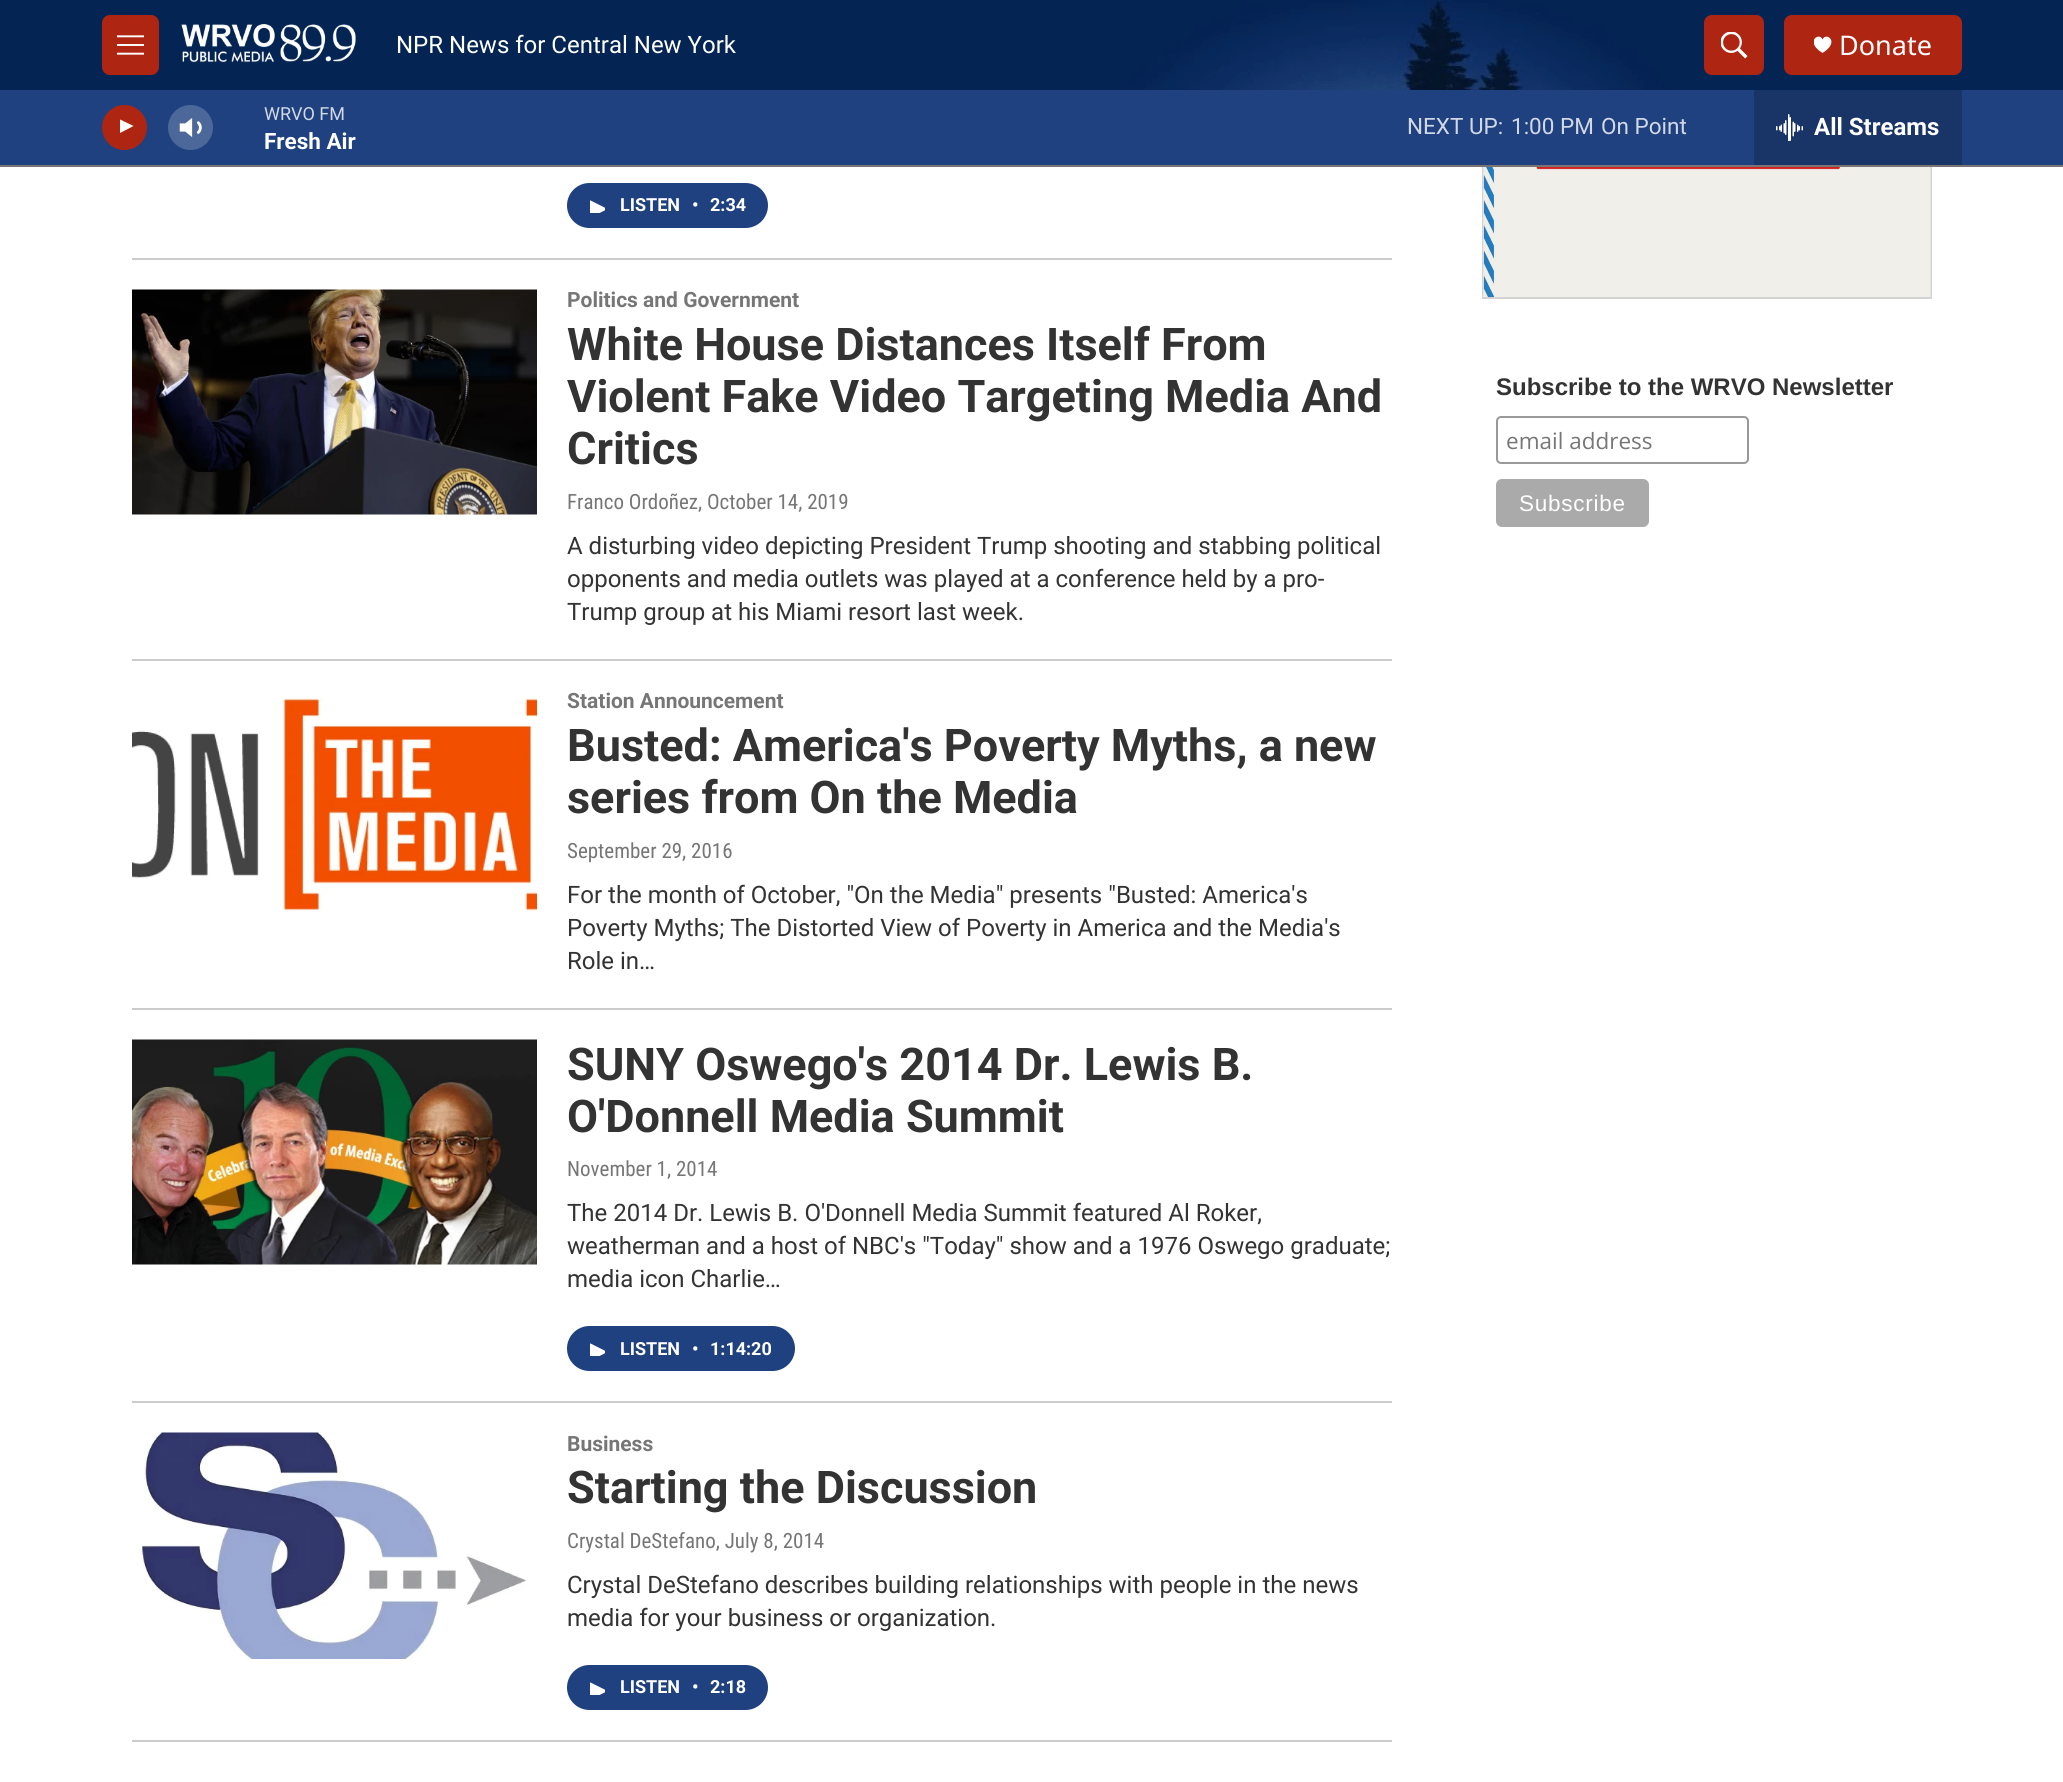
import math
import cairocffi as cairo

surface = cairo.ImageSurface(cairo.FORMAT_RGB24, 2063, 1782)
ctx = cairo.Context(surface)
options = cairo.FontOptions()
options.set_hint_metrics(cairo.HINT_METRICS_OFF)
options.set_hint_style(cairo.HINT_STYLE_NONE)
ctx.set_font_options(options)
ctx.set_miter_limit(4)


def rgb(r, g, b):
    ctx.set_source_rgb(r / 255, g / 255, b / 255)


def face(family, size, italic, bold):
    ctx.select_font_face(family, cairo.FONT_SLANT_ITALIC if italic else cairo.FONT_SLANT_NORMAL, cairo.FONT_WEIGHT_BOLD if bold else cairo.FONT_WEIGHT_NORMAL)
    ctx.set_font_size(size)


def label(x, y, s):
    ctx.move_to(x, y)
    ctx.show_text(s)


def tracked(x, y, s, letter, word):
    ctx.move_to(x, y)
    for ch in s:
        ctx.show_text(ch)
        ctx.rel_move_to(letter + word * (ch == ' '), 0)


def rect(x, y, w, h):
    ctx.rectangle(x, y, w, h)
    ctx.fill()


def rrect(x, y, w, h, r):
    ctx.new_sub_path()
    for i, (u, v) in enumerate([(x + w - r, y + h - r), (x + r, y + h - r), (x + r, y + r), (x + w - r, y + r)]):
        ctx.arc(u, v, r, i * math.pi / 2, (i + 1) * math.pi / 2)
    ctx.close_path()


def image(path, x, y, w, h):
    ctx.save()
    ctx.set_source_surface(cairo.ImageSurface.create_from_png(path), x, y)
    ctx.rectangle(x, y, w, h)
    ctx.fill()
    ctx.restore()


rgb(255, 255, 255)
ctx.paint()
ctx.rectangle(1483, -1, 448, 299)
rgb(211, 211, 211)
ctx.stroke()
rgb(122, 117, 117)
rect(0, 165, 2063, 2)
image('image0.png', 0, 0, 2063, 90)
rgb(174, 37, 18)
rrect(102, 15, 57, 60, 8)
ctx.fill()
image('image1.png', 117, 35, 27, 20)
image('image2.png', 181, 24, 175, 39)
face('Roboto', 24, 0, 0)
rgb(255, 255, 255)
label(396, 53, 'NPR News for Central New York')
rgb(174, 37, 18)
rrect(1704, 15, 60, 60, 8)
ctx.fill()
image('image3.png', 1721, 32, 27, 27)
rrect(1784, 15, 178, 60, 8)
ctx.fill()
ctx.save()
ctx.rectangle(1814, 36, 18, 18)
ctx.clip()
rgb(255, 255, 255)
ctx.new_path()
ctx.move_to(1822.5, 39.5)
ctx.curve_to(1819.5, 31.5, 1804, 41.5, 1822.5, 53)
ctx.curve_to(1841, 41.5, 1825.5, 31.5, 1822.5, 39.5)
ctx.close_path()
ctx.fill()
ctx.restore()
face('Noto Sans', 27, 0, 0)
rgb(255, 255, 255)
label(1839, 55, 'Donate')
rgb(31, 65, 128)
rect(0, 90, 2063, 75)
rgb(174, 37, 18)
ctx.new_path()
ctx.arc(124.5, 127.5, 22.5, 0, 2 * math.pi)
ctx.fill()
ctx.save()
ctx.rectangle(120, 117, 17, 23)
ctx.clip()
rgb(255, 255, 255)
ctx.new_path()
ctx.move_to(119, 119)
ctx.line_to(133.5, 126)
ctx.line_to(119, 133.5)
ctx.close_path()
ctx.fill()
ctx.restore()
image('image4.png', 179, 118, 23, 19)
ctx.set_source_rgba(1, 1, 1, 0.2)
ctx.arc(190.5, 127.5, 22.5, 0, 2 * math.pi)
ctx.fill()
face('Roboto', 18, 0, 0)
rgb(210, 217, 230)
label(264, 120, 'WRVO FM')
face('Roboto', 22.5, 0, 1)
rgb(255, 255, 255)
label(264, 149, 'Fresh Air')
face('Roboto', 22.5, 0, 0)
rgb(210, 217, 230)
label(1407, 134, 'NEXT UP:')
label(1511, 134, '1:00 PM')
label(1601, 134, 'On Point')
rgb(25, 52, 102)
rect(1754, 90, 208, 75)
image('image5.png', 1776, 114, 27, 27)
face('Roboto', 24, 0, 1)
rgb(255, 255, 255)
label(1814, 135, 'All Streams')
rgb(204, 204, 204)
rect(132, 258, 1260, 2)
rgb(31, 65, 128)
rrect(567, 183, 201, 45, 22.5)
ctx.fill()
ctx.save()
ctx.rectangle(590, 198, 15, 15)
ctx.clip()
rgb(255, 255, 255)
ctx.new_path()
ctx.move_to(589.5, 200)
ctx.line_to(607.5, 209)
ctx.line_to(589.5, 218)
ctx.close_path()
ctx.fill()
ctx.restore()
face('Roboto', 18, 0, 1)
rgb(255, 255, 255)
label(620, 211, 'LISTEN')
label(692, 211, '•')
label(710, 211, '2:34')
rgb(204, 204, 204)
rect(132, 659, 1260, 2)
image('image6.png', 132, 289, 405, 226)
face('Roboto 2', 21, 0, 1)
rgb(118, 118, 118)
label(567, 307, 'Politics and Government')
face('Roboto 2', 45, 0, 1)
rgb(51, 51, 51)
label(567, 360, 'White House Distances Itself From')
label(567, 412, 'Violent Fake Video Targeting Media And')
label(567, 464, 'Critics')
face('Roboto Condensed', 21, 0, 0)
rgb(118, 118, 118)
label(567, 509, 'Franco Ordoñez, October 14, 2019')
face('Roboto', 24, 0, 0)
rgb(51, 51, 51)
label(567, 554, 'A disturbing video depicting President Trump shooting and stabbing political')
label(567, 587, 'opponents and media outlets was played at a conference held by a pro-')
label(567, 620, 'Trump group at his Miami resort last week.')
rgb(204, 204, 204)
rect(132, 1008, 1260, 2)
image('image7.png', 132, 697, 405, 214)
face('Roboto 2', 21, 0, 1)
rgb(118, 118, 118)
label(567, 708, 'Station Announcement')
face('Roboto 2', 45, 0, 1)
rgb(51, 51, 51)
label(567, 761, 'Busted: America\'s Poverty Myths, a new')
label(567, 813, 'series from On the Media')
face('Roboto Condensed', 21, 0, 0)
rgb(118, 118, 118)
label(567, 858, 'September 29, 2016')
face('Roboto', 24, 0, 0)
rgb(51, 51, 51)
label(567, 903, 'For the month of October, "On the Media" presents "Busted: America\'s')
label(567, 936, 'Poverty Myths; The Distorted View of Poverty in America and the Media\'s')
label(567, 969, 'Role in…')
rgb(204, 204, 204)
rect(132, 1401, 1260, 2)
image('image8.png', 132, 1039, 405, 226)
face('Roboto 2', 45, 0, 1)
rgb(51, 51, 51)
label(567, 1080, 'SUNY Oswego\'s 2014 Dr. Lewis B.')
label(567, 1132, 'O\'Donnell Media Summit')
face('Roboto Condensed', 21, 0, 0)
rgb(118, 118, 118)
label(567, 1176, 'November 1, 2014')
face('Roboto', 24, 0, 0)
rgb(51, 51, 51)
label(567, 1221, 'The 2014 Dr. Lewis B. O\'Donnell Media Summit featured Al Roker,')
label(567, 1254, 'weatherman and a host of NBC\'s "Today" show and a 1976 Oswego graduate;')
label(567, 1287, 'media icon Charlie…')
rgb(31, 65, 128)
rrect(567, 1326, 228, 45, 22.5)
ctx.fill()
ctx.save()
ctx.rectangle(590, 1341, 15, 15)
ctx.clip()
rgb(255, 255, 255)
ctx.new_path()
ctx.move_to(589.5, 1343)
ctx.line_to(607.5, 1352)
ctx.line_to(589.5, 1361)
ctx.close_path()
ctx.fill()
ctx.restore()
face('Roboto', 18, 0, 1)
rgb(255, 255, 255)
label(620, 1355, 'LISTEN')
label(692, 1355, '•')
label(710, 1355, '1:14:20')
rgb(204, 204, 204)
rect(132, 1740, 1260, 2)
image('image9.png', 142, 1432, 384, 227)
face('Roboto 2', 21, 0, 1)
rgb(118, 118, 118)
label(567, 1451, 'Business')
face('Roboto 2', 45, 0, 1)
rgb(51, 51, 51)
label(567, 1503, 'Starting the Discussion')
face('Roboto Condensed', 21, 0, 0)
rgb(118, 118, 118)
label(567, 1548, 'Crystal DeStefano, July 8, 2014')
face('Roboto', 24, 0, 0)
rgb(51, 51, 51)
label(567, 1593, 'Crystal DeStefano describes building relationships with people in the news')
label(567, 1626, 'media for your business or organization.')
rgb(31, 65, 128)
rrect(567, 1665, 201, 45, 22.5)
ctx.fill()
ctx.save()
ctx.rectangle(590, 1680, 15, 15)
ctx.clip()
rgb(255, 255, 255)
ctx.new_path()
ctx.move_to(589.5, 1682)
ctx.line_to(607.5, 1691)
ctx.line_to(589.5, 1700)
ctx.close_path()
ctx.fill()
ctx.restore()
face('Roboto', 18, 0, 1)
rgb(255, 255, 255)
label(620, 1693, 'LISTEN')
label(692, 1693, '•')
label(710, 1693, '2:18')
image('image10.png', 1483, 167, 448, 130)
face('Liberation Sans', 24, 0, 1)
rgb(51, 51, 51)
label(1496, 395, 'Subscribe to the WRVO Newsletter')
rrect(1497, 417, 251, 46, 4)
rgb(153, 153, 153)
ctx.stroke()
face('Open Sans', 22.5, 0, 0)
rgb(118, 118, 118)
label(1506, 449, 'email address')
rgb(170, 170, 170)
rrect(1496, 479, 153, 48, 6)
ctx.fill()
face('Liberation Sans', 22.5, 0, 0)
rgb(255, 255, 255)
tracked(1519, 511, 'Subscribe', 0.75, 0)
surface.write_to_png('render.png')
